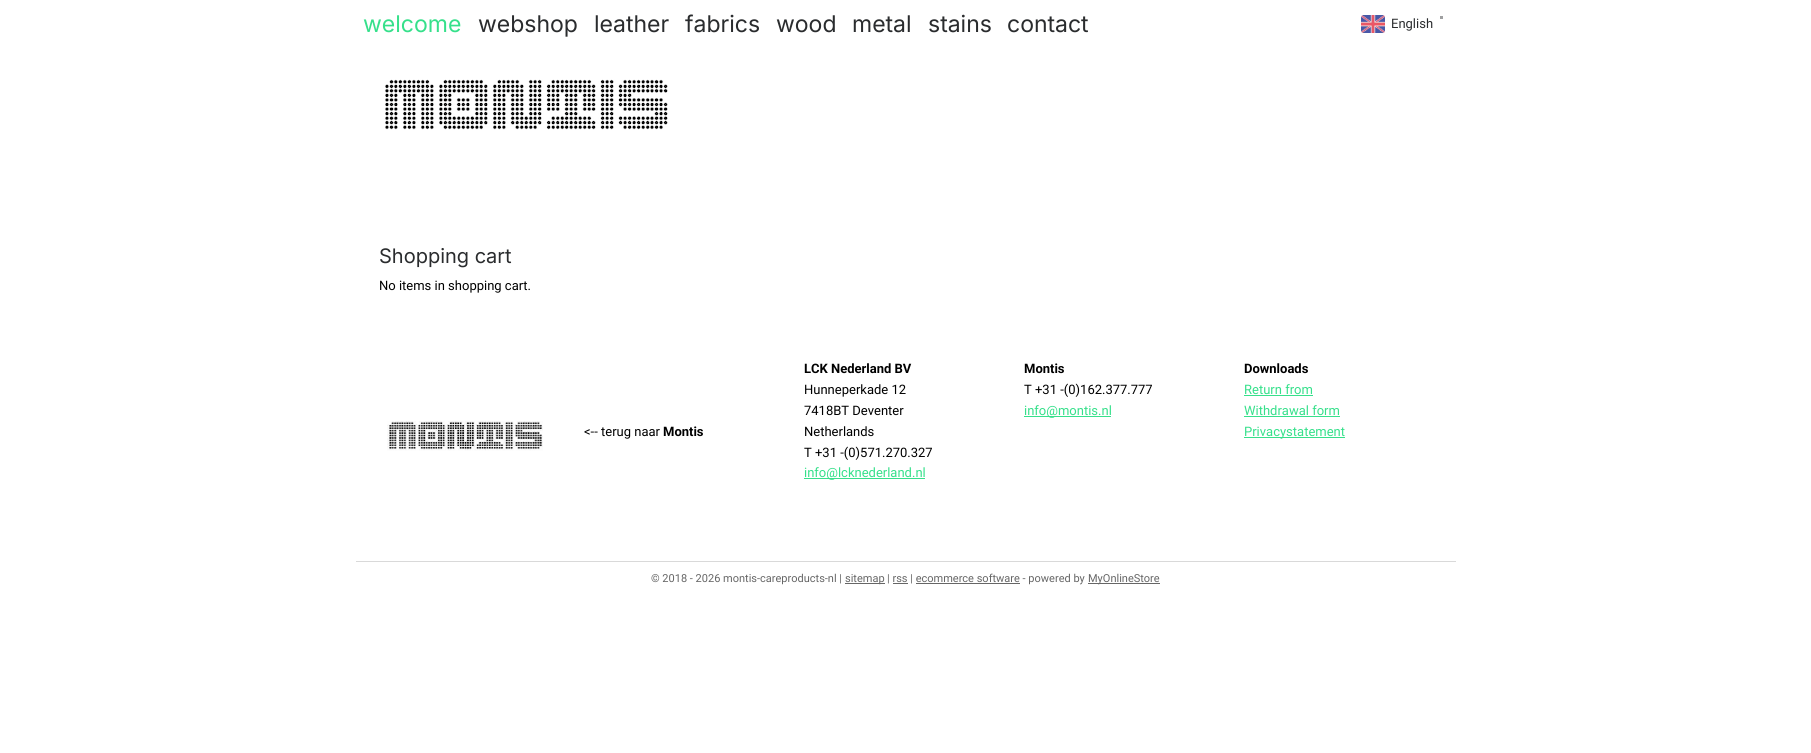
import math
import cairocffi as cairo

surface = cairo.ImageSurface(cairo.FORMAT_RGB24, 1811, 753)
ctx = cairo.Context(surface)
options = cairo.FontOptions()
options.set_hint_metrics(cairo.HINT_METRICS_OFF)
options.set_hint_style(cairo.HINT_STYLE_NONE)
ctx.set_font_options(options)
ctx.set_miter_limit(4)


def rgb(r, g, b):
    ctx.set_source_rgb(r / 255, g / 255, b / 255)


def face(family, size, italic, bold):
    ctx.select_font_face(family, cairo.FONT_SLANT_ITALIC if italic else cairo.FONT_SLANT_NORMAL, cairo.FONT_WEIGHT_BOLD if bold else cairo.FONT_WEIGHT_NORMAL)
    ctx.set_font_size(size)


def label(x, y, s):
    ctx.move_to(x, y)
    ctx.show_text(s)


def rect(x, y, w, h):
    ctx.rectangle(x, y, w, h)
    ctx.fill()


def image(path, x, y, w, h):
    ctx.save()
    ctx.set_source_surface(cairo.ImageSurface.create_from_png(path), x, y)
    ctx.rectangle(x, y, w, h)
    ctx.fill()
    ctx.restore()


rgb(255, 255, 255)
ctx.paint()
face('Inter', 23, 0, 0)
rgb(54, 224, 139)
label(363, 32, 'welcome')
rgb(42, 44, 46)
label(478, 32, 'webshop')
label(594, 32, 'leather')
label(685, 32, 'fabrics')
label(776, 32, 'wood')
label(852, 32, 'metal')
label(928, 32, 'stains')
label(1007, 32, 'contact')
image('image0.png', 1361, 15, 24, 18)
rgb(159, 160, 161)
rect(1440, 16, 3, 3)
face('Roboto', 13, 0, 0)
rgb(42, 44, 46)
label(1391, 28, 'English')
image('image1.png', 385, 79, 283, 51)
face('Inter', 20, 0, 0)
label(379, 263, 'Shopping cart')
face('Roboto', 13, 0, 0)
rgb(0, 0, 0)
label(379, 290, 'No items in shopping cart.')
image('image2.png', 387, 421, 156, 30)
label(584, 436, '<-- terug naar')
face('Roboto', 13, 0, 1)
label(663, 436, 'Montis')
label(804, 373, 'LCK Nederland BV')
face('Roboto', 13, 0, 0)
label(804, 394, 'Hunneperkade 12')
label(804, 415, '7418BT Deventer')
label(804, 436, 'Netherlands')
label(804, 457, 'T +31 -(0)571.270.327')
rgb(54, 224, 139)
rect(804, 478, 121, 1)
label(804, 477, 'info@lcknederland.nl')
face('Roboto', 13, 0, 1)
rgb(0, 0, 0)
label(1024, 373, 'Montis')
face('Roboto', 13, 0, 0)
label(1024, 394, 'T +31 -(0)162.377.777')
rgb(54, 224, 139)
rect(1024, 416, 87, 1)
label(1024, 415, 'info@montis.nl')
face('Roboto', 13, 0, 1)
rgb(0, 0, 0)
label(1244, 373, 'Downloads')
face('Roboto', 13, 0, 0)
rgb(54, 224, 139)
label(1244, 394, 'Return from')
rect(1244, 395, 69, 1)
label(1244, 415, 'Withdrawal form')
rect(1244, 416, 96, 1)
rect(1244, 437, 101, 1)
label(1244, 436, 'Privacystatement')
rgb(217, 217, 217)
rect(356, 561, 1100, 1)
face('Roboto', 11, 0, 0)
rgb(102, 102, 102)
label(651, 582, '© 2018 - 2026 montis-careproducts-nl |')
rect(845, 583, 40, 1)
label(845, 582, 'sitemap')
label(887, 582, '| rss | ecommerce software - powered by')
rect(1088, 583, 72, 1)
label(1088, 582, 'MyOnlineStore')
rect(893, 583, 15, 1)
rect(916, 583, 104, 1)
surface.write_to_png('render.png')
